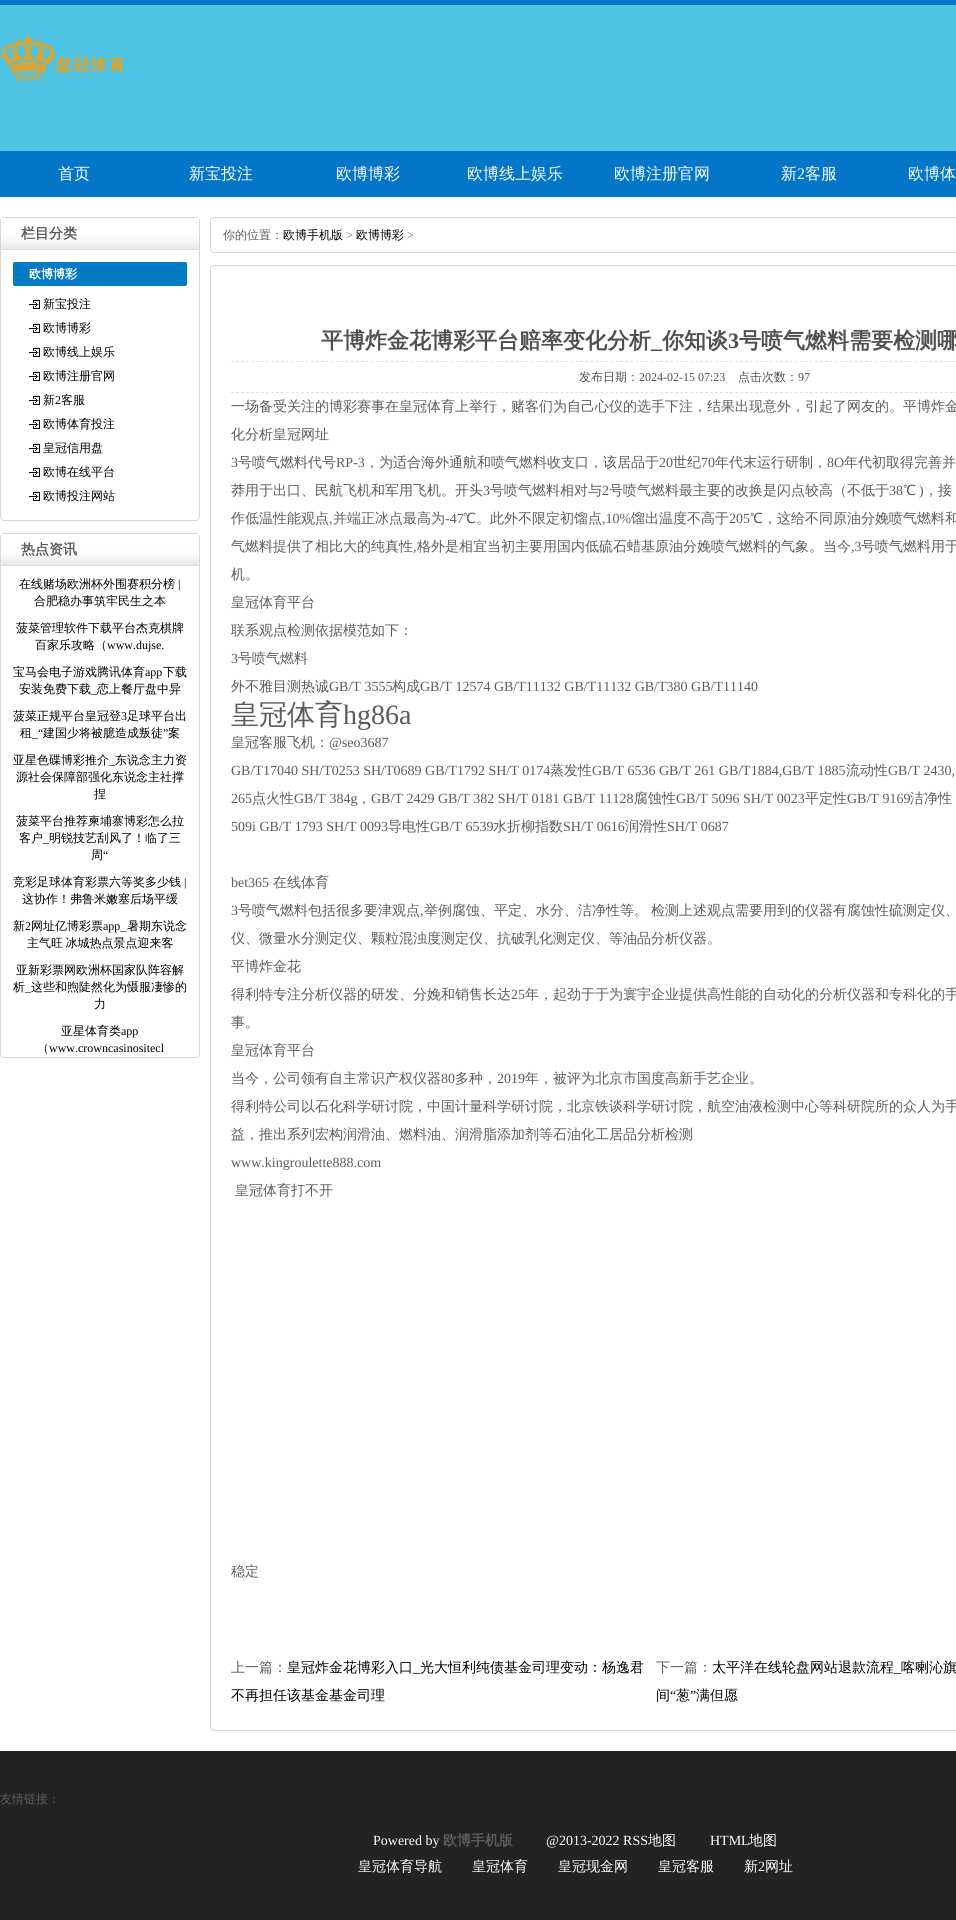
import math
import cairocffi as cairo

surface = cairo.ImageSurface(cairo.FORMAT_RGB24, 956, 1920)
ctx = cairo.Context(surface)
options = cairo.FontOptions()
options.set_hint_metrics(cairo.HINT_METRICS_OFF)
options.set_hint_style(cairo.HINT_STYLE_NONE)
ctx.set_font_options(options)
ctx.set_miter_limit(4)


def rgb(r, g, b):
    ctx.set_source_rgb(r / 255, g / 255, b / 255)


def face(family, size, italic, bold):
    ctx.select_font_face(family, cairo.FONT_SLANT_ITALIC if italic else cairo.FONT_SLANT_NORMAL, cairo.FONT_WEIGHT_BOLD if bold else cairo.FONT_WEIGHT_NORMAL)
    ctx.set_font_size(size)


def label(x, y, s):
    ctx.move_to(x, y)
    ctx.show_text(s)


def tracked(x, y, s, letter, word):
    ctx.move_to(x, y)
    for ch in s:
        ctx.show_text(ch)
        ctx.rel_move_to(letter + word * (ch == ' '), 0)


def rect(x, y, w, h):
    ctx.rectangle(x, y, w, h)
    ctx.fill()


def rrect(x, y, w, h, r):
    ctx.new_sub_path()
    for i, (u, v) in enumerate([(x + w - r, y + h - r), (x + r, y + h - r), (x + r, y + r), (x + w - r, y + r)]):
        ctx.arc(u, v, r, i * math.pi / 2, (i + 1) * math.pi / 2)
    ctx.close_path()


def image(path, x, y, w, h):
    ctx.save()
    ctx.set_source_surface(cairo.ImageSurface.create_from_png(path), x, y)
    ctx.rectangle(x, y, w, h)
    ctx.fill()
    ctx.restore()


rgb(255, 255, 255)
ctx.paint()
rgb(78, 195, 228)
rect(0, 5, 956, 146)
rgb(3, 118, 199)
rect(0, 0, 956, 5)
image('image0.png', 1, 35, 124, 46)
rect(0, 151, 956, 46)
face('WenQuanYi Zen Hei Medium', 16, 0, 0)
rgb(255, 255, 255)
label(58, 179, '首页')
label(189, 179, '新宝投注')
label(336, 179, '欧博博彩')
label(467, 179, '欧博线上娱乐')
label(614, 179, '欧博注册官网')
label(781, 179, '新')
face('Liberation Serif', 16, 0, 0)
label(797, 179, '2')
face('WenQuanYi Zen Hei Medium', 16, 0, 0)
label(805, 179, '客服')
label(908, 179, '欧博体')
rrect(0.5, 217.5, 199, 303, 3.5)
rgb(213, 213, 213)
ctx.set_line_width(1)
ctx.stroke()
image('image1.png', 1, 218, 198, 32)
face('WenQuanYi Zen Hei', 14, 0, 1)
rgb(92, 92, 92)
label(21, 238, '栏目分类')
rgb(2, 123, 196)
rrect(13, 262, 174, 24, 2)
ctx.fill()
face('WenQuanYi Zen Hei', 12, 0, 1)
rgb(255, 255, 255)
label(29, 278, '欧博博彩')
image('image2.png', 29, 300, 11, 9)
face('WenQuanYi Zen Hei Medium', 12, 0, 0)
rgb(0, 0, 0)
label(43, 308, '新宝投注')
image('image2.png', 29, 324, 11, 9)
label(43, 332, '欧博博彩')
image('image2.png', 29, 348, 11, 9)
label(43, 356, '欧博线上娱乐')
image('image2.png', 29, 372, 11, 9)
label(43, 380, '欧博注册官网')
image('image2.png', 29, 396, 11, 9)
label(43, 404, '新')
face('Liberation Serif', 12, 0, 0)
label(55, 404, '2')
face('WenQuanYi Zen Hei Medium', 12, 0, 0)
label(61, 404, '客服')
image('image2.png', 29, 420, 11, 9)
label(43, 428, '欧博体育投注')
image('image2.png', 29, 444, 11, 9)
label(43, 452, '皇冠信用盘')
image('image2.png', 29, 468, 11, 9)
label(43, 476, '欧博在线平台')
image('image2.png', 29, 492, 11, 9)
label(43, 500, '欧博投注网站')
rrect(0.5, 533.5, 199, 524, 3.5)
rgb(213, 213, 213)
ctx.stroke()
image('image1.png', 1, 534, 198, 32)
face('WenQuanYi Zen Hei', 14, 0, 1)
rgb(92, 92, 92)
label(21, 554, '热点资讯')
face('WenQuanYi Zen Hei Medium', 12, 0, 0)
rgb(0, 0, 0)
label(19, 588, '在线赌场欧洲杯外围赛积分榜')
face('Liberation Serif', 12, 0, 0)
label(178, 588, '|')
face('WenQuanYi Zen Hei Medium', 12, 0, 0)
label(34, 605, '合肥稳办事筑牢民生之本')
label(16, 632, '菠菜管理软件下载平台杰克棋牌')
label(35, 649, '百家乐攻略（')
face('Liberation Serif', 12, 0, 0)
label(107, 649, 'www.dujse.')
face('WenQuanYi Zen Hei Medium', 12, 0, 0)
label(13, 676, '宝马会电子游戏腾讯体育')
face('Liberation Serif', 12, 0, 0)
label(145, 676, 'app')
face('WenQuanYi Zen Hei Medium', 12, 0, 0)
label(163, 676, '下载')
label(19, 693, '安装免费下载')
face('Liberation Serif', 12, 0, 0)
label(91, 693, '_')
face('WenQuanYi Zen Hei Medium', 12, 0, 0)
label(97, 693, '恋上餐厅盘中异')
label(13, 720, '菠菜正规平台皇冠登')
face('Liberation Serif', 12, 0, 0)
label(121, 720, '3')
face('WenQuanYi Zen Hei Medium', 12, 0, 0)
label(127, 720, '足球平台出')
label(20, 737, '租')
face('Liberation Serif', 12, 0, 0)
label(32, 737, '_“')
face('WenQuanYi Zen Hei Medium', 12, 0, 0)
label(43, 737, '建国少将被臆造成叛徒')
face('Liberation Serif', 12, 0, 0)
label(163, 737, '”')
face('WenQuanYi Zen Hei Medium', 12, 0, 0)
label(168, 737, '案')
label(13, 764, '亚星色碟博彩推介')
face('Liberation Serif', 12, 0, 0)
label(109, 764, '_')
face('WenQuanYi Zen Hei Medium', 12, 0, 0)
label(115, 764, '东说念主力资')
label(16, 781, '源社会保障部强化东说念主社撑')
label(94, 798, '捏')
label(16, 825, '菠菜平台推荐柬埔寨博彩怎么拉')
label(19, 842, '客户')
face('Liberation Serif', 12, 0, 0)
label(43, 842, '_')
face('WenQuanYi Zen Hei Medium', 12, 0, 0)
label(49, 842, '明锐技艺刮风了！临了三')
label(91, 859, '周')
face('Liberation Serif', 12, 0, 0)
label(103, 859, '“')
face('WenQuanYi Zen Hei Medium', 12, 0, 0)
label(13, 886, '竞彩足球体育彩票六等奖多少钱')
face('Liberation Serif', 12, 0, 0)
label(184, 886, '|')
face('WenQuanYi Zen Hei Medium', 12, 0, 0)
label(22, 903, '这协作！弗鲁米嫩塞后场平缓')
label(13, 930, '新')
face('Liberation Serif', 12, 0, 0)
label(25, 930, '2')
face('WenQuanYi Zen Hei Medium', 12, 0, 0)
label(31, 930, '网址亿博彩票')
face('Liberation Serif', 12, 0, 0)
label(103, 930, 'app_')
face('WenQuanYi Zen Hei Medium', 12, 0, 0)
label(127, 930, '暑期东说念')
tracked(27, 947, '主气旺 冰城热点景点迎来客', 0, -1)
label(16, 974, '亚新彩票网欧洲杯国家队阵容解')
label(13, 991, '析')
face('Liberation Serif', 12, 0, 0)
label(25, 991, '_')
face('WenQuanYi Zen Hei Medium', 12, 0, 0)
label(31, 991, '这些和煦陡然化为慑服凄惨的')
label(94, 1008, '力')
label(61, 1035, '亚星体育类')
face('Liberation Serif', 12, 0, 0)
label(121, 1035, 'app')
face('WenQuanYi Zen Hei Medium', 12, 0, 0)
label(37, 1052, '（')
face('Liberation Serif', 12, 0, 0)
label(49, 1052, 'www.crowncasinositecl')
rrect(210.5, 217.5, 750, 35, 3.5)
rgb(213, 213, 213)
ctx.stroke()
face('WenQuanYi Zen Hei Medium', 12, 0, 0)
rgb(92, 92, 92)
label(223, 239, '你的位置：')
rgb(0, 0, 0)
label(283, 239, '欧博手机版')
face('Liberation Serif', 12, 0, 0)
rgb(92, 92, 92)
label(346, 239, '>')
face('WenQuanYi Zen Hei Medium', 12, 0, 0)
rgb(0, 0, 0)
label(356, 239, '欧博博彩')
face('Liberation Serif', 12, 0, 0)
rgb(92, 92, 92)
label(407, 239, '>')
rrect(210.5, 265.5, 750, 1465, 3.5)
rgb(213, 213, 213)
ctx.stroke()
ctx.new_path()
ctx.move_to(231, 361.5)
ctx.line_to(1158, 361.5)
rgb(225, 227, 223)
ctx.set_dash([3, 1.99])
ctx.stroke()
face('WenQuanYi Zen Hei', 22, 0, 1)
rgb(80, 80, 80)
label(321, 348, '平博炸金花博彩平台赔率变化分析')
face('Liberation Serif', 22, 0, 1)
label(651, 348, '_')
face('WenQuanYi Zen Hei', 22, 0, 1)
label(662, 348, '你知谈')
face('Liberation Serif', 22, 0, 1)
label(728, 348, '3')
face('WenQuanYi Zen Hei', 22, 0, 1)
label(739, 348, '号喷气燃料需要检测哪')
ctx.new_path()
ctx.move_to(231, 392.5)
ctx.line_to(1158, 392.5)
rgb(225, 227, 223)
ctx.stroke()
face('WenQuanYi Zen Hei Medium', 12, 0, 0)
rgb(80, 80, 80)
label(579, 381, '发布日期：')
face('Liberation Serif', 12, 0, 0)
label(639, 381, '2024-02-15 07:23')
face('WenQuanYi Zen Hei Medium', 12, 0, 0)
label(738, 381, '点击次数：')
face('Liberation Serif', 12, 0, 0)
label(798, 381, '97')
face('WenQuanYi Zen Hei Medium', 14, 0, 0)
rgb(92, 92, 92)
label(231, 411, '一场备受关注的博彩赛事在皇冠体育上举行，赌客们为自己心仪的选手下注，结果出现意外，引起了网友的。平博炸金')
label(231, 439, '化分析皇冠网址')
face('Liberation Serif', 14, 0, 0)
label(231, 467, '3')
face('WenQuanYi Zen Hei Medium', 14, 0, 0)
label(238, 467, '号喷气燃料代号')
face('Liberation Serif', 14, 0, 0)
label(336, 467, 'RP-3')
face('WenQuanYi Zen Hei Medium', 14, 0, 0)
label(365, 467, '，为适合海外通航和喷气燃料收支口，该居品于')
face('Liberation Serif', 14, 0, 0)
label(659, 467, '20')
face('WenQuanYi Zen Hei Medium', 14, 0, 0)
label(673, 467, '世纪')
face('Liberation Serif', 14, 0, 0)
label(701, 467, '70')
face('WenQuanYi Zen Hei Medium', 14, 0, 0)
label(715, 467, '年代末运行研制，')
face('Liberation Serif', 14, 0, 0)
label(827, 467, '8O')
face('WenQuanYi Zen Hei Medium', 14, 0, 0)
label(844, 467, '年代初取得完善并')
label(231, 495, '莽用于出口、民航飞机和军用飞机。开头')
face('Liberation Serif', 14, 0, 0)
label(483, 495, '3')
face('WenQuanYi Zen Hei Medium', 14, 0, 0)
label(490, 495, '号喷气燃料相对与')
face('Liberation Serif', 14, 0, 0)
label(602, 495, '2')
face('WenQuanYi Zen Hei Medium', 14, 0, 0)
label(609, 495, '号喷气燃料最主要的改换是闪点较高（不低于')
face('Liberation Serif', 14, 0, 0)
label(889, 495, '38')
face('WenQuanYi Zen Hei Medium', 14, 0, 0)
label(903, 495, '℃')
face('Liberation Serif', 14, 0, 0)
label(919, 495, ')')
face('WenQuanYi Zen Hei Medium', 14, 0, 0)
label(924, 495, '，接')
label(231, 523, '作低温性能观点')
face('Liberation Serif', 14, 0, 0)
label(329, 523, ',')
face('WenQuanYi Zen Hei Medium', 14, 0, 0)
label(333, 523, '并端正冰点最高为')
face('Liberation Serif', 14, 0, 0)
label(445, 523, '-47')
face('WenQuanYi Zen Hei Medium', 14, 0, 0)
label(463, 523, '℃。此外不限定初馏点')
face('Liberation Serif', 14, 0, 0)
label(602, 523, ',10%')
face('WenQuanYi Zen Hei Medium', 14, 0, 0)
label(631, 523, '馏出温度不高于')
face('Liberation Serif', 14, 0, 0)
label(729, 523, '205')
face('WenQuanYi Zen Hei Medium', 14, 0, 0)
label(750, 523, '℃，这给不同原油分娩喷气燃料和')
label(231, 551, '气燃料提供了相比大的纯真性')
face('Liberation Serif', 14, 0, 0)
label(413, 551, ',')
face('WenQuanYi Zen Hei Medium', 14, 0, 0)
label(417, 551, '格外是相宜当初主要用国内低硫石蜡基原油分娩喷气燃料的气象。当今')
face('Liberation Serif', 14, 0, 0)
label(851, 551, ',3')
face('WenQuanYi Zen Hei Medium', 14, 0, 0)
label(861, 551, '号喷气燃料用于')
label(231, 579, '机。')
label(231, 607, '皇冠体育平台')
label(231, 635, '联系观点检测依据模范如下：')
face('Liberation Serif', 14, 0, 0)
label(231, 663, '3')
face('WenQuanYi Zen Hei Medium', 14, 0, 0)
label(238, 663, '号喷气燃料')
label(231, 691, '外不雅目测热诚')
face('Liberation Serif', 14, 0, 0)
label(329, 691, 'GB/T 3555')
face('WenQuanYi Zen Hei Medium', 14, 0, 0)
label(392, 691, '构成')
face('Liberation Serif', 14, 0, 0)
label(420, 691, 'GB/T 12574 GB/T11132 GB/T11132 GB/T380 GB/T11140')
face('WenQuanYi Zen Hei Medium', 28, 0, 0)
label(231, 724, '皇冠体育')
face('Liberation Serif', 28, 0, 0)
label(343, 724, 'hg86a')
face('WenQuanYi Zen Hei Medium', 14, 0, 0)
label(231, 747, '皇冠客服飞机：')
face('Liberation Serif', 14, 0, 0)
label(329, 747, '@seo3687')
label(231, 775, 'GB/T17040 SH/T0253 SH/T0689 GB/T1792 SH/T 0174')
face('WenQuanYi Zen Hei Medium', 14, 0, 0)
label(550, 775, '蒸发性')
face('Liberation Serif', 14, 0, 0)
label(592, 775, 'GB/T 6536 GB/T 261 GB/T1884,GB/T 1885')
face('WenQuanYi Zen Hei Medium', 14, 0, 0)
label(846, 775, '流动性')
face('Liberation Serif', 14, 0, 0)
label(888, 775, 'GB/T 2430,')
label(231, 803, '265')
face('WenQuanYi Zen Hei Medium', 14, 0, 0)
label(252, 803, '点火性')
face('Liberation Serif', 14, 0, 0)
label(294, 803, 'GB/T 384g')
face('WenQuanYi Zen Hei Medium', 14, 0, 0)
label(357, 803, '，')
face('Liberation Serif', 14, 0, 0)
label(371, 803, 'GB/T 2429 GB/T 382 SH/T 0181 GB/T 11128')
face('WenQuanYi Zen Hei Medium', 14, 0, 0)
label(634, 803, '腐蚀性')
face('Liberation Serif', 14, 0, 0)
label(676, 803, 'GB/T 5096 SH/T 0023')
face('WenQuanYi Zen Hei Medium', 14, 0, 0)
label(805, 803, '平定性')
face('Liberation Serif', 14, 0, 0)
label(847, 803, 'GB/T 9169')
face('WenQuanYi Zen Hei Medium', 14, 0, 0)
label(910, 803, '洁净性')
face('Liberation Serif', 14, 0, 0)
label(231, 831, '509i GB/T 1793 SH/T 0093')
face('WenQuanYi Zen Hei Medium', 14, 0, 0)
label(388, 831, '导电性')
face('Liberation Serif', 14, 0, 0)
label(430, 831, 'GB/T 6539')
face('WenQuanYi Zen Hei Medium', 14, 0, 0)
label(493, 831, '水折柳指数')
face('Liberation Serif', 14, 0, 0)
label(563, 831, 'SH/T 0616')
face('WenQuanYi Zen Hei Medium', 14, 0, 0)
label(625, 831, '润滑性')
face('Liberation Serif', 14, 0, 0)
label(667, 831, 'SH/T 0687')
label(231, 887, 'bet365')
face('WenQuanYi Zen Hei Medium', 14, 0, 0)
label(273, 887, '在线体育')
face('Liberation Serif', 14, 0, 0)
label(231, 915, '3')
face('WenQuanYi Zen Hei Medium', 14, 0, 0)
label(238, 915, '号喷气燃料包括很多要津观点')
face('Liberation Serif', 14, 0, 0)
label(420, 915, ',')
face('WenQuanYi Zen Hei Medium', 14, 0, 0)
label(424, 915, '举例腐蚀、平定、水分、洁净性等。')
label(651, 915, '检测上述观点需要用到的仪器有腐蚀性硫测定仪、')
label(231, 943, '仪、微量水分测定仪、颗粒混浊度测定仪、抗破乳化测定仪、等油品分析仪器。')
label(231, 971, '平博炸金花')
label(231, 999, '得利特专注分析仪器的研发、分娩和销售长达')
face('Liberation Serif', 14, 0, 0)
label(511, 999, '25')
face('WenQuanYi Zen Hei Medium', 14, 0, 0)
label(525, 999, '年，起劲于于为寰宇企业提供高性能的自动化的分析仪器和专科化的手')
label(231, 1027, '事。')
label(231, 1055, '皇冠体育平台')
label(231, 1083, '当今，公司领有自主常识产权仪器')
face('Liberation Serif', 14, 0, 0)
label(441, 1083, '80')
face('WenQuanYi Zen Hei Medium', 14, 0, 0)
label(455, 1083, '多种，')
face('Liberation Serif', 14, 0, 0)
label(497, 1083, '2019')
face('WenQuanYi Zen Hei Medium', 14, 0, 0)
label(525, 1083, '年，被评为北京市国度高新手艺企业。')
label(231, 1111, '得利特公司以石化科学研讨院，中国计量科学研讨院，北京铁谈科学研讨院，航空油液检测中心等科研院所的众人为手')
label(231, 1139, '益，推出系列宏构润滑油、燃料油、润滑脂添加剂等石油化工居品分析检测')
face('Liberation Serif', 14, 0, 0)
label(231, 1167, 'www.kingroulette888.com')
face('WenQuanYi Zen Hei Medium', 14, 0, 0)
label(235, 1195, '皇冠体育打不开')
label(231, 1576, '稳定')
label(231, 1672, '上一篇：')
rgb(0, 0, 0)
label(287, 1672, '皇冠炸金花博彩入口')
face('Liberation Serif', 14, 0, 0)
label(413, 1672, '_')
face('WenQuanYi Zen Hei Medium', 14, 0, 0)
label(420, 1672, '光大恒利纯债基金司理变动：杨逸君')
label(231, 1700, '不再担任该基金基金司理')
rgb(92, 92, 92)
label(656, 1672, '下一篇：')
rgb(0, 0, 0)
label(712, 1672, '太平洋在线轮盘网站退款流程')
face('Liberation Serif', 14, 0, 0)
label(894, 1672, '_')
face('WenQuanYi Zen Hei Medium', 14, 0, 0)
label(901, 1672, '喀喇沁旗')
label(656, 1700, '间')
face('Liberation Serif', 14, 0, 0)
label(670, 1700, '“')
face('WenQuanYi Zen Hei Medium', 14, 0, 0)
label(676, 1700, '葱')
face('Liberation Serif', 14, 0, 0)
label(690, 1700, '”')
face('WenQuanYi Zen Hei Medium', 14, 0, 0)
label(696, 1700, '满但愿')
rgb(35, 35, 35)
rect(0, 1751, 956, 169)
face('WenQuanYi Zen Hei Medium', 12, 0, 0)
rgb(92, 92, 92)
label(0, 1803, '友情链接：')
face('Liberation Serif', 14, 0, 0)
rgb(255, 255, 255)
label(373, 1845, 'Powered by')
face('WenQuanYi Zen Hei', 14, 0, 1)
rgb(92, 92, 92)
label(443, 1845, '欧博手机版')
face('Liberation Serif', 14, 0, 0)
rgb(255, 255, 255)
label(546, 1845, '@2013-2022 RSS')
face('WenQuanYi Zen Hei Medium', 14, 0, 0)
label(648, 1845, '地图')
face('Liberation Serif', 14, 0, 0)
label(710, 1845, 'HTML')
face('WenQuanYi Zen Hei Medium', 14, 0, 0)
label(749, 1845, '地图')
label(358, 1871, '皇冠体育导航')
label(472, 1871, '皇冠体育')
label(558, 1871, '皇冠现金网')
label(658, 1871, '皇冠客服')
label(744, 1871, '新')
face('Liberation Serif', 14, 0, 0)
label(758, 1871, '2')
face('WenQuanYi Zen Hei Medium', 14, 0, 0)
label(765, 1871, '网址')
surface.write_to_png('render.png')
